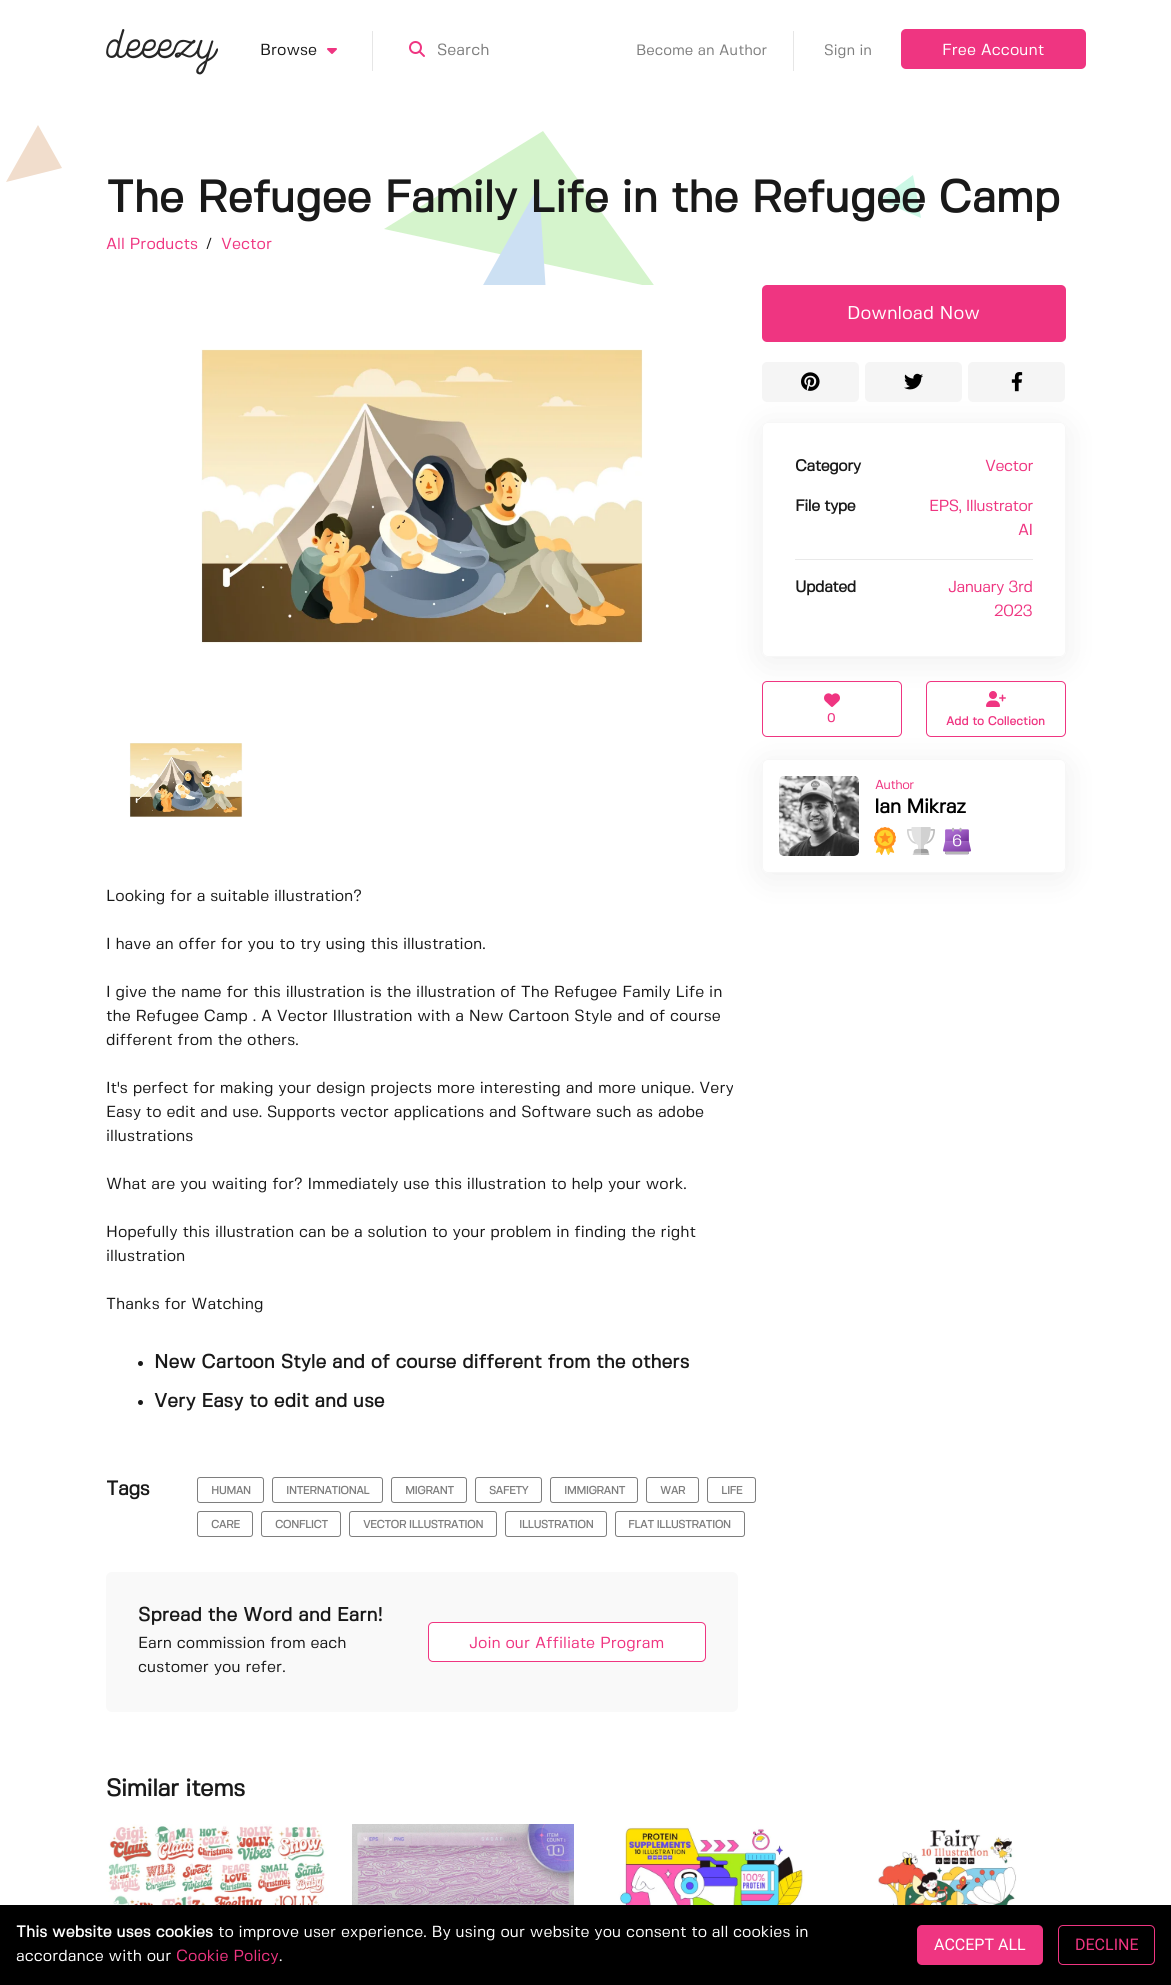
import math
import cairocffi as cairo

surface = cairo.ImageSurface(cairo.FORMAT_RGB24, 1171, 1985)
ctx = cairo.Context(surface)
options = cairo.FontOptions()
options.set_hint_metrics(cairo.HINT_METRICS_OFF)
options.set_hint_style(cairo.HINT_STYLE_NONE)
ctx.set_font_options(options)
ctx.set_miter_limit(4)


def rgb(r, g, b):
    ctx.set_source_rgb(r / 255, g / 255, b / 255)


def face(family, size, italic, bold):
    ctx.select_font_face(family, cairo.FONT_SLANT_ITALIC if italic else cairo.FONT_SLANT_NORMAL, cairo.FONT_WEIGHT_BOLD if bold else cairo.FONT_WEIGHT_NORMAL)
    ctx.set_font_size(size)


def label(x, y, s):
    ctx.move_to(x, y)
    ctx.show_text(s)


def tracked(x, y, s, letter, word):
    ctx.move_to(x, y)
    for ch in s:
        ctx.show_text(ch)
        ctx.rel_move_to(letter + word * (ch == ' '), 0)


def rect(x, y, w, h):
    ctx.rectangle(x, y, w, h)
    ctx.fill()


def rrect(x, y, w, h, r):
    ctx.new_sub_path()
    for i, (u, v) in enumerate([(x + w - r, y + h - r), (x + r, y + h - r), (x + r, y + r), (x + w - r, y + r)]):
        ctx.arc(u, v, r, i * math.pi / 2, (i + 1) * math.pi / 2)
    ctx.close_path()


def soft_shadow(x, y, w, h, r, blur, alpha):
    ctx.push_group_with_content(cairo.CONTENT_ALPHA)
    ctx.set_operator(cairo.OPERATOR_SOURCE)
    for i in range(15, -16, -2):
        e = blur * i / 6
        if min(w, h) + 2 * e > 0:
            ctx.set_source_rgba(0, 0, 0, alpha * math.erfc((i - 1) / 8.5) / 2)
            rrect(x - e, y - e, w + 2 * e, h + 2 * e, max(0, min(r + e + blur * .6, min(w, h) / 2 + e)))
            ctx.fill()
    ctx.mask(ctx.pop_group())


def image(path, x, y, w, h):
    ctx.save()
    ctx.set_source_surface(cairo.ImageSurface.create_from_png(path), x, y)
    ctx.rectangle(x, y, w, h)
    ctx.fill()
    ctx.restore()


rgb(255, 255, 255)
ctx.paint()
image('image0.png', 106, 29, 112, 46)
face('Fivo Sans', 16, 0, 0)
rgb(25, 25, 25)
label(260, 55, 'Browse')
image('image1.png', 327, 48, 10, 6)
rgb(230, 230, 230)
rect(372, 31, 1, 40)
image('image2.png', 409, 41, 16, 16)
rgb(126, 126, 126)
label(437, 55, 'Search')
face('Fivo Sans', 15, 0, 0)
label(636, 55, 'Become an Author')
rgb(230, 230, 230)
rect(793, 31, 1, 40)
rgb(126, 126, 126)
label(824, 55, 'Sign in')
rgb(239, 53, 129)
rrect(901, 29, 185, 40, 5)
ctx.fill()
face('Fivo Sans', 16, 0, 0)
rgb(255, 255, 255)
label(942, 55, 'Free Account')
rgb(213, 244, 204)
ctx.new_path()
ctx.move_to(656, 288)
ctx.line_to(384, 229)
ctx.line_to(543, 131)
ctx.close_path()
ctx.fill()
rgb(204, 248, 230)
ctx.new_path()
ctx.move_to(921, 218)
ctx.line_to(879, 200)
ctx.line_to(913, 175)
ctx.close_path()
ctx.fill()
rgb(204, 224, 243)
ctx.new_path()
ctx.move_to(454, 337)
ctx.line_to(539, 185)
ctx.line_to(546, 293)
ctx.close_path()
ctx.fill()
face('Fivo Sans', 44.8, 0, 1)
rgb(25, 25, 25)
tracked(106, 212, 'The Refugee Family Life in the Refugee Camp', -0.5, 0)
face('Fivo Sans', 16, 0, 0)
rgb(239, 53, 129)
label(106, 249, 'All Products')
rgb(25, 25, 25)
label(206, 249, '/')
rgb(239, 53, 129)
label(221, 249, 'Vector')
rrect(762, 285, 304, 57, 5)
ctx.fill()
face('Fivo Sans', 18.5, 0, 0)
rgb(255, 255, 255)
label(847, 319, 'Download Now')
ctx.save()
ctx.set_fill_rule(cairo.FILL_RULE_EVEN_ODD)
ctx.new_path()
ctx.move_to(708, 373)
ctx.line_to(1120, 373)
ctx.line_to(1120, 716)
ctx.line_to(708, 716)
ctx.close_path()
ctx.move_to(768, 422)
ctx.line_to(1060, 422)
ctx.curve_to(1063.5, 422, 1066, 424.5, 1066, 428)
ctx.line_to(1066, 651)
ctx.curve_to(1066, 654.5, 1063.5, 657, 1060, 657)
ctx.line_to(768, 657)
ctx.curve_to(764.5, 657, 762, 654.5, 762, 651)
ctx.line_to(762, 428)
ctx.curve_to(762, 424.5, 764.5, 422, 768, 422)
ctx.close_path()
ctx.clip()
rgb(10, 10, 10)
soft_shadow(762, 427, 304, 235, 6, 17.5, 0.07)
ctx.restore()
rgb(245, 245, 245)
rrect(762, 362, 97, 40, 5)
ctx.fill()
image('image3.png', 801, 372, 19, 19)
rrect(865, 362, 97, 40, 5)
ctx.fill()
image('image4.png', 904, 373, 19, 17)
rrect(968, 362, 97, 40, 5)
ctx.fill()
image('image5.png', 1011, 372, 12, 20)
rrect(762.5, 422.5, 303, 234, 5.5)
rgb(247, 247, 247)
ctx.set_line_width(1)
ctx.stroke()
face('Fivo Sans', 16, 0, 1)
rgb(25, 25, 25)
tracked(795, 471, 'Category', -0.5, 0)
face('Fivo Sans', 16, 0, 0)
rgb(239, 53, 129)
tracked(985, 471, 'Vector', -0.5, 0)
face('Fivo Sans', 16, 0, 1)
rgb(25, 25, 25)
tracked(795, 511, 'File type', -0.5, 0)
face('Fivo Sans', 16, 0, 0)
rgb(239, 53, 129)
tracked(929, 511, 'EPS, Illustrator', -0.5, 0)
tracked(1018, 535, 'AI', -0.5, 0)
rgb(233, 233, 233)
rect(795, 559, 238, 1)
face('Fivo Sans', 16, 0, 1)
rgb(25, 25, 25)
tracked(795, 592, 'Updated', -0.5, 0)
face('Fivo Sans', 16, 0, 0)
rgb(239, 53, 129)
tracked(948, 592, 'January 3rd', -0.5, 0)
tracked(994, 616, '2023', -0.5, 0)
ctx.save()
ctx.set_fill_rule(cairo.FILL_RULE_EVEN_ODD)
ctx.new_path()
ctx.move_to(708, 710)
ctx.line_to(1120, 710)
ctx.line_to(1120, 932)
ctx.line_to(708, 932)
ctx.close_path()
ctx.move_to(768, 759)
ctx.line_to(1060, 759)
ctx.curve_to(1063.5, 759, 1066, 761.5, 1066, 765)
ctx.line_to(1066, 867)
ctx.curve_to(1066, 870.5, 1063.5, 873, 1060, 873)
ctx.line_to(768, 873)
ctx.curve_to(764.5, 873, 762, 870.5, 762, 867)
ctx.line_to(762, 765)
ctx.curve_to(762, 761.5, 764.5, 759, 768, 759)
ctx.close_path()
ctx.clip()
rgb(10, 10, 10)
soft_shadow(762, 764, 304, 114, 6, 17.5, 0.07)
ctx.restore()
rrect(762.5, 681.5, 139, 55, 4.5)
ctx.stroke()
image('image6.png', 824, 693, 16, 14)
face('Fivo Sans', 12, 0, 1)
label(827, 722, '0')
rrect(926.5, 681.5, 139, 55, 4.5)
ctx.stroke()
image('image7.png', 986, 691, 20, 16)
label(946, 725, 'Add to Collection')
rrect(762.5, 759.5, 303, 113, 5.5)
rgb(247, 247, 247)
ctx.stroke()
image('image8.png', 779, 776, 80, 80)
face('Fivo Sans', 13, 0, 0)
rgb(239, 53, 129)
tracked(875, 789, 'Author', -0.5, 0)
face('Fivo Sans', 20, 0, 1)
rgb(0, 0, 0)
tracked(874, 813, 'Ian Mikraz', -0.5, 0)
image('image9.png', 874, 827, 22, 28)
image('image10.png', 907, 827, 28, 28)
image('image11.png', 943, 827, 28, 28)
face('Fivo Sans', 16, 0, 0)
rgb(255, 255, 255)
tracked(952, 846, '6', -0.5, 0)
image('image12.png', 201, 285, 455, 359)
image('image13.png', 129, 743, 114, 75)
rgb(25, 25, 25)
label(106, 901, 'Looking for a suitable illustration?')
label(106, 949, 'I have an offer for you to try using this illustration.')
label(106, 997, 'I give the name for this illustration is the illustration of The Refugee Family Life in')
label(106, 1021, 'the Refugee Camp . A Vector Illustration with a New Cartoon Style and of course')
label(106, 1045, 'different from the others.')
label(106, 1093, 'It\'s perfect for making your design projects more interesting and more unique. Very')
label(106, 1117, 'Easy to edit and use. Supports vector applications and Software such as adobe')
label(106, 1141, 'illustrations')
label(106, 1189, 'What are you waiting for? Immediately use this illustration to help your work.')
label(106, 1237, 'Hopefully this illustration can be a solution to your problem in finding the right')
label(106, 1261, 'illustration')
label(106, 1309, 'Thanks for Watching')
rgb(26, 26, 26)
ctx.new_path()
ctx.arc(140.5, 1363.5, 2.5, 0, 2 * math.pi)
ctx.fill()
face('Fivo Sans', 19.2, 0, 1)
rgb(25, 25, 25)
label(154, 1368, 'New Cartoon Style and of course different from the others')
rgb(26, 26, 26)
ctx.new_path()
ctx.arc(140.5, 1402.5, 2.5, 0, 2 * math.pi)
ctx.fill()
rgb(25, 25, 25)
label(154, 1407, 'Very Easy to edit and use')
face('Fivo Sans', 20, 0, 1)
tracked(106, 1495, 'Tags', -0.5, 0)
rrect(197.5, 1477.5, 66, 25, 2.5)
rgb(126, 126, 126)
ctx.stroke()
face('Fivo Sans', 11, 0, 1)
tracked(211, 1494, 'HUMAN', -0.5, 0)
rrect(272.5, 1477.5, 110, 25, 2.5)
ctx.stroke()
tracked(286, 1494, 'INTERNATIONAL', -0.5, 0)
rrect(391.5, 1477.5, 75, 25, 2.5)
ctx.stroke()
tracked(405, 1494, 'MIGRANT', -0.5, 0)
rrect(475.5, 1477.5, 66, 25, 2.5)
ctx.stroke()
tracked(489, 1494, 'SAFETY', -0.5, 0)
rrect(550.5, 1477.5, 87, 25, 2.5)
ctx.stroke()
tracked(564, 1494, 'IMMIGRANT', -0.5, 0)
rrect(646.5, 1477.5, 52, 25, 2.5)
ctx.stroke()
tracked(660, 1494, 'WAR', -0.5, 0)
rrect(707.5, 1477.5, 48, 25, 2.5)
ctx.stroke()
tracked(721, 1494, 'LIFE', -0.5, 0)
rrect(197.5, 1511.5, 55, 25, 2.5)
ctx.stroke()
tracked(211, 1528, 'CARE', -0.5, 0)
rrect(261.5, 1511.5, 79, 25, 2.5)
ctx.stroke()
tracked(275, 1528, 'CONFLICT', -0.5, 0)
rrect(349.5, 1511.5, 147, 25, 2.5)
ctx.stroke()
tracked(363, 1528, 'VECTOR ILLUSTRATION', -0.5, 0)
rrect(505.5, 1511.5, 101, 25, 2.5)
ctx.stroke()
tracked(519, 1528, 'ILLUSTRATION', -0.5, 0)
rrect(615.5, 1511.5, 129, 25, 2.5)
ctx.stroke()
tracked(628, 1528, 'FLAT ILLUSTRATION', -0.5, 0)
rgb(249, 249, 249)
rrect(106, 1572, 632, 140, 6)
ctx.fill()
face('Fivo Sans', 19.2, 0, 1)
rgb(25, 25, 25)
label(138, 1621, 'Spread the Word and Earn!')
face('Fivo Sans', 16, 0, 0)
label(138, 1648, 'Earn commission from each')
label(138, 1672, 'customer you refer.')
rgb(255, 255, 255)
rrect(428.5, 1622.5, 277, 39, 4.5)
ctx.fill_preserve()
rgb(239, 53, 129)
ctx.stroke()
label(469, 1648, 'Join our Affiliate Program')
face('Fivo Sans', 24, 0, 1)
rgb(25, 25, 25)
tracked(106, 1796, 'Similar items', -0.5, 0)
image('image14.png', 106, 1824, 222, 81)
image('image15.png', 352, 1824, 222, 81)
image('image16.png', 598, 1824, 222, 81)
image('image17.png', 844, 1824, 222, 81)
rgb(0, 0, 0)
rect(0, 1905, 1171, 80)
face('Fivo Sans', 16, 0, 1)
rgb(255, 255, 255)
label(16, 1937, 'This website uses cookies')
face('Fivo Sans', 16, 0, 0)
label(218, 1937, 'to improve user experience. By using our website you consent to all cookies in')
label(16, 1961, 'accordance with our')
rgb(239, 53, 129)
label(176, 1961, 'Cookie Policy')
rgb(255, 255, 255)
label(279, 1961, '.')
rgb(239, 53, 129)
rrect(917, 1925, 126, 40, 5)
ctx.fill()
face('Roboto', 16, 0, 0)
rgb(255, 255, 255)
label(934, 1950, 'ACCEPT ALL')
rrect(1058.5, 1925.5, 96, 39, 4.5)
rgb(239, 53, 129)
ctx.stroke()
label(1075, 1950, 'DECLINE')
rgb(241, 221, 204)
ctx.new_path()
ctx.move_to(6, 182)
ctx.line_to(38, 125)
ctx.line_to(62, 168)
ctx.close_path()
ctx.fill()
surface.write_to_png('render.png')
